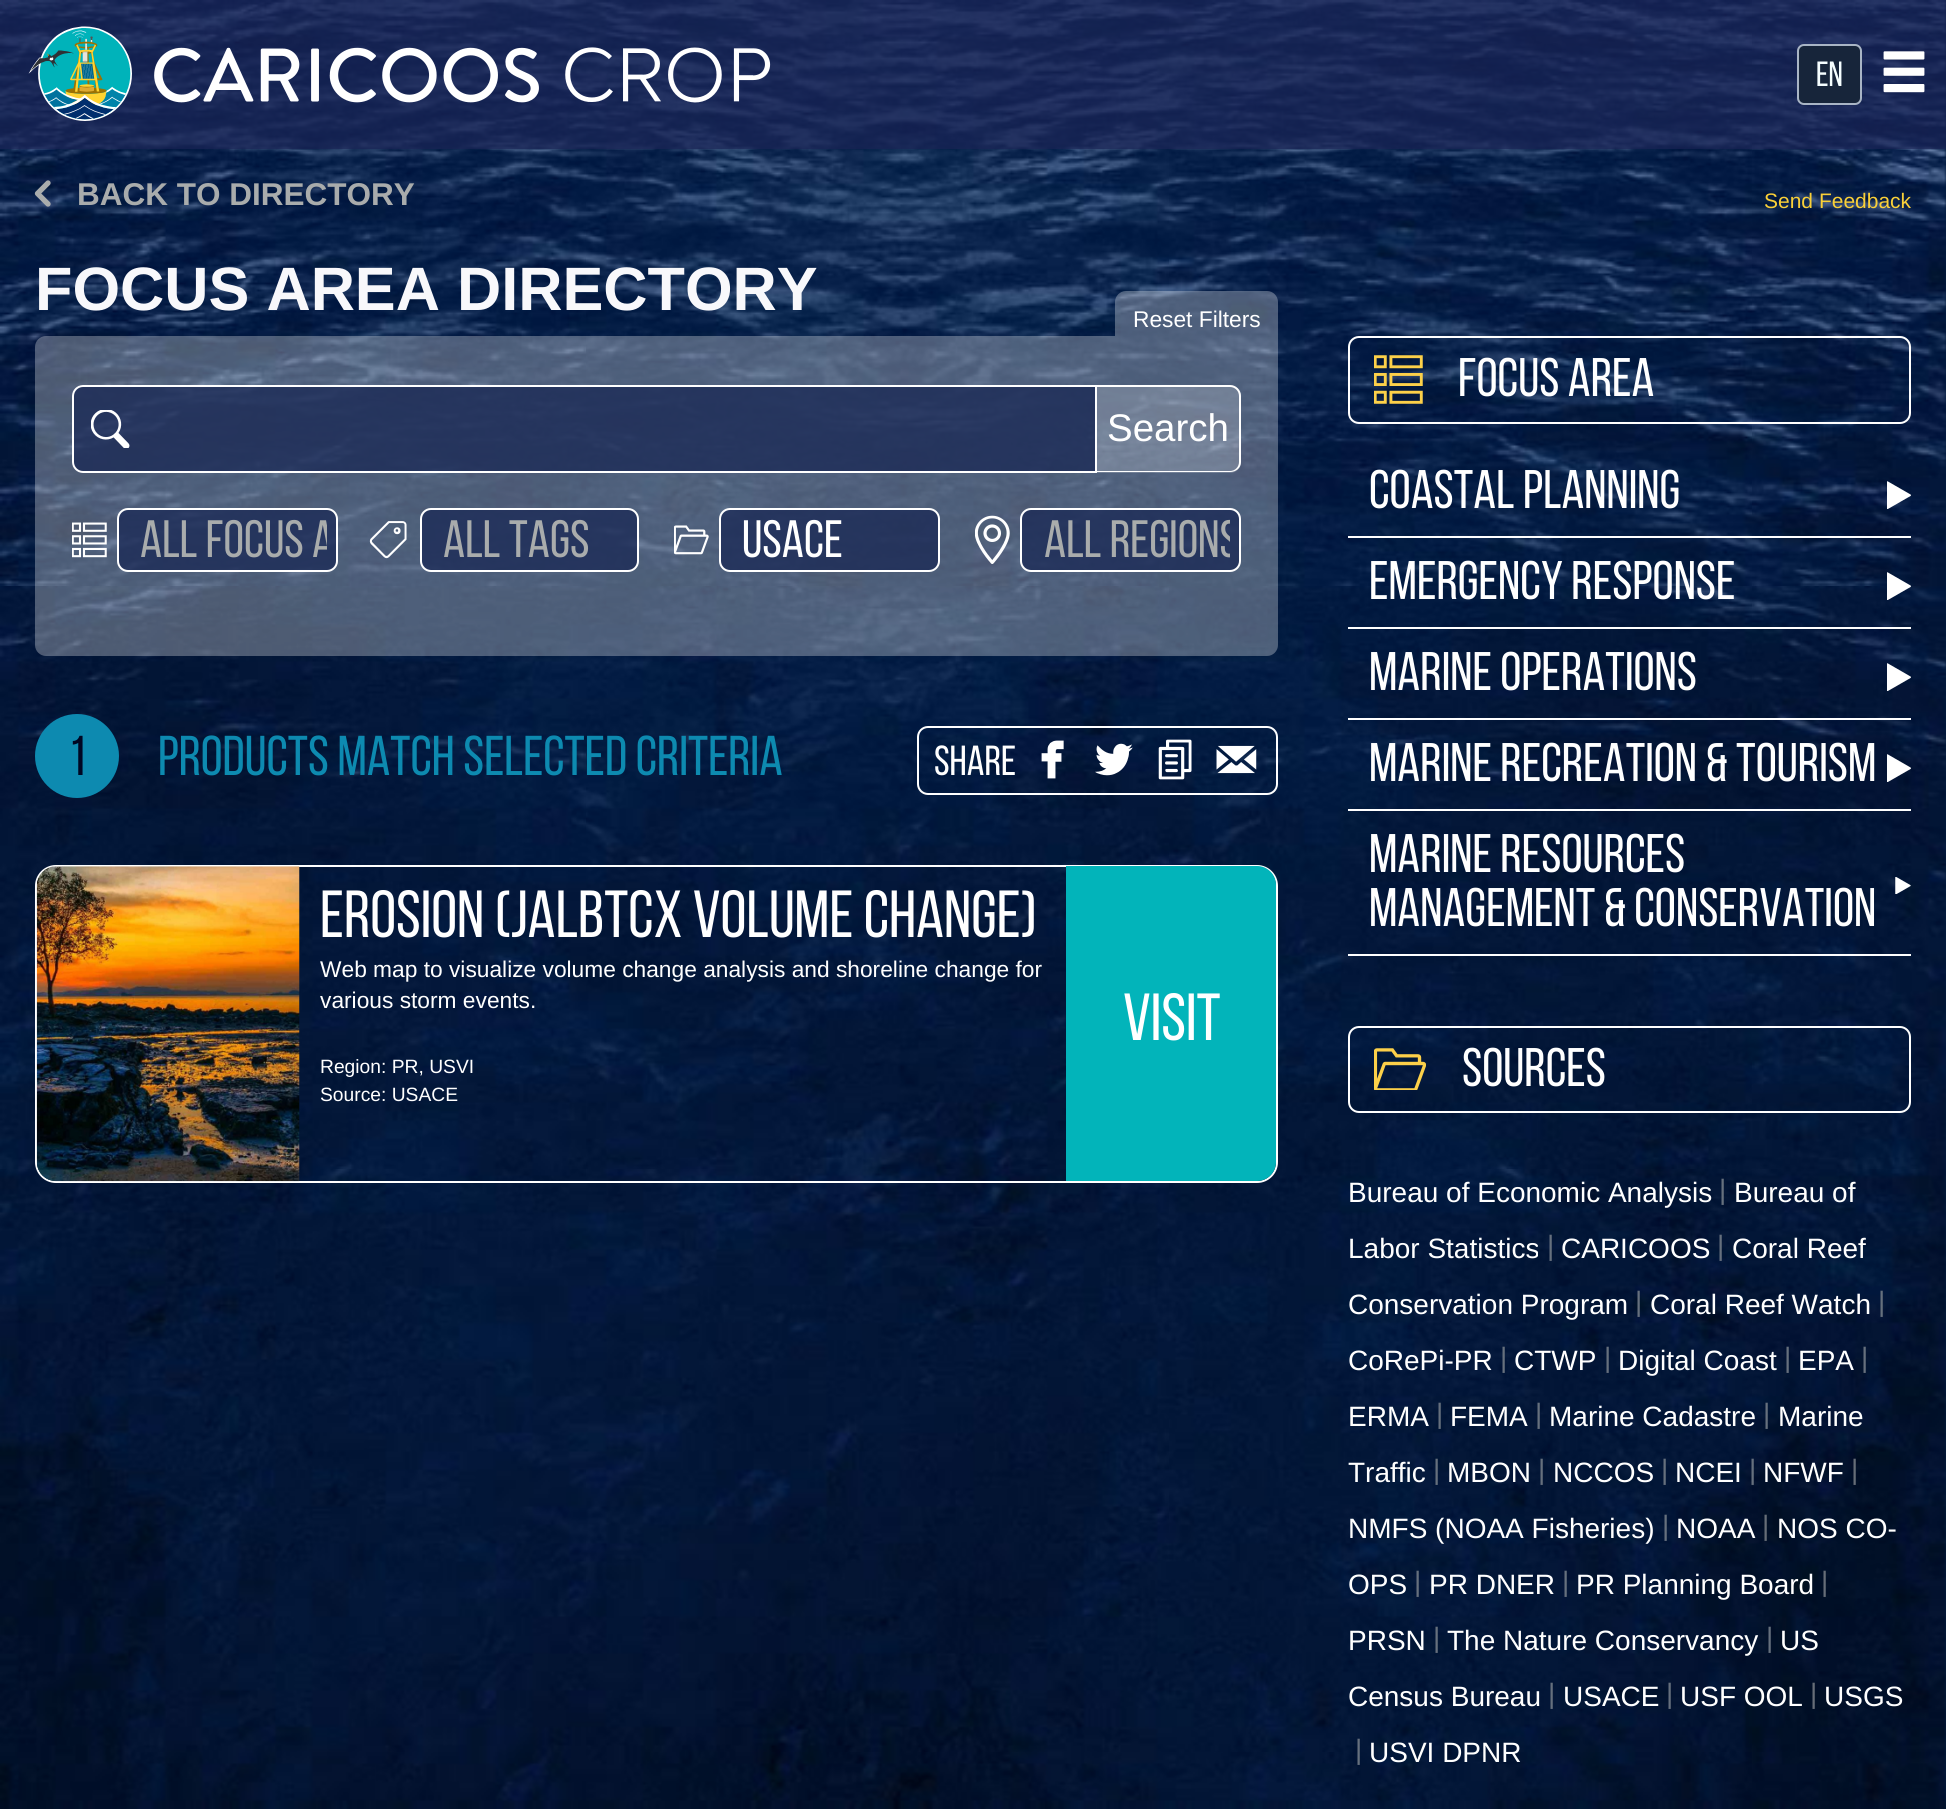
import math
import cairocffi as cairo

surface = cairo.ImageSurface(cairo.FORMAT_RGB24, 1946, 1809)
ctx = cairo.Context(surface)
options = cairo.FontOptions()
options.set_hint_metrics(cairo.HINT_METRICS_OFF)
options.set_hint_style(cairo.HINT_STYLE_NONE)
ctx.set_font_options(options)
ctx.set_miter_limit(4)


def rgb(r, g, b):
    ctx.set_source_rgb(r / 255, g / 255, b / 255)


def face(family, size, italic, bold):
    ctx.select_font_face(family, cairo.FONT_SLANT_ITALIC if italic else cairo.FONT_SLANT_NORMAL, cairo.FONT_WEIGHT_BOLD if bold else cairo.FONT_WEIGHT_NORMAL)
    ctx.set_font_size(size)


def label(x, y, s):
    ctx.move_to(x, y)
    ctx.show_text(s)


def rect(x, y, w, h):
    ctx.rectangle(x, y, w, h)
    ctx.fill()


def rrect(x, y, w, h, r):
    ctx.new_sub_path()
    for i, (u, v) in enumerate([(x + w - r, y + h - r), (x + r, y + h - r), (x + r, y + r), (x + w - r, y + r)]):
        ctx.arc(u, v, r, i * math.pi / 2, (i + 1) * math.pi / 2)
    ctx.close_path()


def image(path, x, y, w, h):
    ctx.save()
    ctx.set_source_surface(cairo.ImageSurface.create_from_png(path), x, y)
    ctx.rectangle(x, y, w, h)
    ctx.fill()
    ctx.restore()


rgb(3, 29, 65)
ctx.paint()
image('image0.png', 0, 0, 1946, 1809)
ctx.set_source_rgba(0.102, 0.145, 0.337, 0.7)
rect(0, 0, 1946, 149)
image('image1.png', 28, 26, 104, 95)
image('image2.png', 154, 47, 385, 56)
image('image3.png', 565, 47, 206, 56)
rgb(23, 37, 58)
rrect(1798, 45, 63, 59, 6)
ctx.fill_preserve()
rgb(169, 181, 197)
ctx.stroke()
face('Bebas Neue', 35, 0, 0)
rgb(245, 254, 255)
label(1816, 86, 'en')
image('image4.png', 1883, 51, 42, 42)
face('Liberation Sans', 31.5, 0, 1)
rgb(169, 172, 172)
label(77, 205, 'BACK TO DIRECTORY')
ctx.new_path()
ctx.move_to(48, 204)
ctx.line_to(37.5, 193.5)
ctx.line_to(48, 183)
ctx.set_line_width(5.3)
ctx.set_line_cap(cairo.LINE_CAP_ROUND)
ctx.set_line_join(cairo.LINE_JOIN_ROUND)
ctx.stroke()
face('Liberation Sans', 21, 0, 0)
rgb(250, 208, 56)
label(1764, 208, 'Send Feedback')
face('Liberation Sans', 61.25, 0, 1)
rgb(248, 248, 251)
label(35, 310, 'FOCUS AREA DIRECTORY')
ctx.set_source_rgba(1, 1, 1, 0.3)
ctx.new_path()
ctx.move_to(46, 336)
ctx.line_to(1278, 336)
ctx.line_to(1278, 645)
ctx.curve_to(1278, 651, 1273, 656, 1267, 656)
ctx.line_to(46, 656)
ctx.curve_to(40, 656, 35, 651, 35, 645)
ctx.line_to(35, 347)
ctx.curve_to(35, 341, 40, 336, 46, 336)
ctx.close_path()
ctx.fill()
ctx.new_path()
ctx.move_to(1126, 291)
ctx.line_to(1267, 291)
ctx.curve_to(1273, 291, 1278, 296, 1278, 302)
ctx.line_to(1278, 336)
ctx.line_to(1115, 336)
ctx.line_to(1115, 302)
ctx.curve_to(1115, 296, 1120, 291, 1126, 291)
ctx.close_path()
ctx.fill()
face('Liberation Sans', 22.75, 0, 0)
rgb(255, 255, 255)
label(1133, 327, 'Reset Filters')
ctx.set_source_rgba(0.11, 0.169, 0.337, 0.8)
ctx.new_path()
ctx.move_to(83, 385)
ctx.line_to(1097, 385)
ctx.line_to(1097, 473)
ctx.line_to(83, 473)
ctx.curve_to(77, 473, 72, 468, 72, 462)
ctx.line_to(72, 396)
ctx.curve_to(72, 390, 77, 385, 83, 385)
ctx.close_path()
ctx.fill()
image('image5.png', 91, 410, 39, 38)
ctx.new_path()
ctx.move_to(83, 386)
ctx.line_to(1096, 386)
ctx.line_to(1096, 472)
ctx.line_to(83, 472)
ctx.curve_to(77.5, 472, 73, 467.5, 73, 462)
ctx.line_to(73, 396)
ctx.curve_to(73, 390.5, 77.5, 386, 83, 386)
ctx.close_path()
rgb(255, 255, 255)
ctx.set_line_width(2)
ctx.set_line_cap(cairo.LINE_CAP_BUTT)
ctx.set_line_join(cairo.LINE_JOIN_MITER)
ctx.stroke()
ctx.set_source_rgba(1, 1, 1, 0.2)
ctx.new_path()
ctx.move_to(1097, 385)
ctx.line_to(1230, 385)
ctx.curve_to(1236, 385, 1241, 390, 1241, 396)
ctx.line_to(1241, 462)
ctx.curve_to(1241, 468, 1236, 473, 1230, 473)
ctx.line_to(1097, 473)
ctx.close_path()
ctx.fill()
rgb(255, 255, 255)
ctx.set_fill_rule(cairo.FILL_RULE_EVEN_ODD)
ctx.new_path()
ctx.move_to(1097, 385)
ctx.line_to(1230, 385)
ctx.curve_to(1236, 385, 1241, 390, 1241, 396)
ctx.line_to(1241, 462)
ctx.curve_to(1241, 468, 1236, 472, 1230, 472)
ctx.line_to(1097, 472)
ctx.close_path()
ctx.move_to(1097, 387)
ctx.line_to(1230, 387)
ctx.curve_to(1235, 387, 1239, 391, 1239, 396)
ctx.line_to(1239, 462)
ctx.curve_to(1239, 467, 1235, 471, 1230, 471)
ctx.line_to(1097, 471)
ctx.close_path()
ctx.fill()
face('Liberation Sans', 38.5, 0, 0)
label(1107, 441, 'Search')
image('image6.png', 72, 522, 35, 36)
ctx.set_source_rgba(0.11, 0.169, 0.337, 0.8)
rrect(118, 509, 219, 62, 10)
ctx.fill_preserve()
rgb(255, 255, 255)
ctx.stroke()
ctx.save()
ctx.set_fill_rule(cairo.FILL_RULE_WINDING)
ctx.rectangle(140, 518, 187, 53)
ctx.clip()
face('Bebas Neue', 52.5, 0, 0)
rgb(169, 172, 172)
label(140, 557, 'All Focus A')
ctx.restore()
image('image7.png', 369, 521, 38, 38)
ctx.set_source_rgba(0.11, 0.169, 0.337, 0.8)
rrect(421, 509, 217, 62, 10)
ctx.fill_preserve()
rgb(255, 255, 255)
ctx.stroke()
face('Bebas Neue', 52.5, 0, 0)
rgb(169, 172, 172)
label(443, 557, 'All Tags')
image('image8.png', 674, 525, 35, 30)
ctx.set_source_rgba(0.11, 0.169, 0.337, 0.8)
rrect(720, 509, 219, 62, 10)
ctx.fill_preserve()
rgb(255, 255, 255)
ctx.stroke()
label(742, 557, 'USACE')
image('image9.png', 975, 515, 35, 49)
ctx.set_source_rgba(0.11, 0.169, 0.337, 0.8)
rrect(1021, 509, 219, 62, 10)
ctx.fill_preserve()
rgb(255, 255, 255)
ctx.stroke()
ctx.save()
ctx.set_fill_rule(cairo.FILL_RULE_WINDING)
ctx.rectangle(1043, 518, 187, 53)
ctx.clip()
rgb(169, 172, 172)
label(1044, 557, 'All Regions')
ctx.restore()
rgb(13, 138, 176)
ctx.new_path()
ctx.arc(77, 756, 42, 0, 2 * math.pi)
ctx.fill()
face('Bebas Neue', 56, 0, 0)
rgb(0, 7, 35)
label(68, 775, '1')
rgb(13, 138, 176)
label(158, 775, 'products match selected criteria')
rrect(918, 727, 359, 67, 10)
rgb(255, 255, 255)
ctx.stroke()
face('Bebas Neue', 42, 0, 0)
label(934, 775, 'SHARE')
image('image10.png', 1041, 740, 23, 39)
image('image11.png', 1095, 743, 38, 33)
image('image12.png', 1158, 739, 34, 41)
image('image13.png', 1216, 745, 41, 29)
rrect(36, 866, 1241, 316, 20)
ctx.stroke()
ctx.set_source_rgba(1, 1, 1, 0.1)
ctx.new_path()
ctx.move_to(56, 866)
ctx.line_to(299, 866)
ctx.line_to(299, 1181)
ctx.line_to(56, 1181)
ctx.curve_to(45.5, 1181, 37, 1172.5, 37, 1162)
ctx.line_to(37, 885)
ctx.curve_to(37, 874.5, 45.5, 866, 56, 866)
ctx.close_path()
ctx.fill()
image('image14.png', 36, 866, 264, 316)
face('Bebas Neue', 66.5, 0, 0)
rgb(255, 255, 255)
label(320, 937, 'EROSION (JALBTCX Volume Change)')
face('Liberation Sans', 22.75, 0, 0)
label(320, 977, 'Web map to visualize volume change analysis and shoreline change for')
label(320, 1008, 'various storm events.')
face('Liberation Sans', 19.25, 0, 0)
label(320, 1073, 'Region: PR, USVI')
label(320, 1101, 'Source: USACE')
rgb(2, 180, 186)
ctx.new_path()
ctx.move_to(1066, 866)
ctx.line_to(1257, 866)
ctx.curve_to(1267.5, 866, 1276, 874.5, 1276, 885)
ctx.line_to(1276, 1162)
ctx.curve_to(1276, 1172.5, 1267.5, 1181, 1257, 1181)
ctx.line_to(1066, 1181)
ctx.close_path()
ctx.fill()
face('Bebas Neue', 66.5, 0, 0)
rgb(255, 255, 255)
label(1123, 1040, 'VISIT')
rrect(1349, 337, 561, 86, 10)
ctx.stroke()
image('image15.png', 1374, 355, 49, 49)
face('Bebas Neue', 54.25, 0, 0)
label(1458, 396, 'Focus Area')
rect(1348, 536, 563, 2)
label(1369, 508, 'Coastal Planning')
image('image16.png', 1887, 481, 24, 28)
rect(1348, 627, 563, 2)
label(1369, 599, 'Emergency Response')
image('image17.png', 1887, 572, 24, 28)
rect(1348, 718, 563, 2)
label(1369, 690, 'Marine Operations')
image('image18.png', 1887, 663, 24, 28)
rect(1348, 809, 563, 2)
label(1369, 781, 'Marine Recreation & Tourism')
image('image19.png', 1887, 754, 24, 28)
rect(1348, 954, 563, 2)
label(1369, 872, 'Marine Resources')
label(1369, 926, 'Management & Conservation')
image('image20.png', 1895, 877, 16, 17)
rrect(1349, 1027, 561, 85, 10)
ctx.stroke()
image('image21.png', 1374, 1048, 52, 42)
label(1462, 1086, 'Sources')
face('Liberation Sans', 28, 0, 0)
label(1348, 1202, 'Bureau of Economic Analysis')
rgb(102, 112, 125)
label(1719, 1199, '|')
rgb(255, 255, 255)
label(1734, 1202, 'Bureau of')
label(1348, 1258, 'Labor Statistics')
rgb(102, 112, 125)
label(1547, 1255, '|')
rgb(255, 255, 255)
label(1561, 1258, 'CARICOOS')
rgb(102, 112, 125)
label(1717, 1255, '|')
rgb(255, 255, 255)
label(1732, 1258, 'Coral Reef')
label(1348, 1314, 'Conservation Program')
rgb(102, 112, 125)
label(1635, 1311, '|')
rgb(255, 255, 255)
label(1650, 1314, 'Coral Reef Watch')
rgb(102, 112, 125)
label(1878, 1311, '|')
rgb(255, 255, 255)
label(1348, 1370, 'CoRePi-PR')
rgb(102, 112, 125)
label(1500, 1367, '|')
rgb(255, 255, 255)
label(1514, 1370, 'CTWP')
rgb(102, 112, 125)
label(1604, 1367, '|')
rgb(255, 255, 255)
label(1618, 1370, 'Digital Coast')
rgb(102, 112, 125)
label(1784, 1367, '|')
rgb(255, 255, 255)
label(1798, 1370, 'EPA')
rgb(102, 112, 125)
label(1861, 1367, '|')
rgb(255, 255, 255)
label(1348, 1426, 'ERMA')
rgb(102, 112, 125)
label(1436, 1423, '|')
rgb(255, 255, 255)
label(1450, 1426, 'FEMA')
rgb(102, 112, 125)
label(1535, 1423, '|')
rgb(255, 255, 255)
label(1549, 1426, 'Marine Cadastre')
rgb(102, 112, 125)
label(1763, 1423, '|')
rgb(255, 255, 255)
label(1778, 1426, 'Marine')
label(1348, 1482, 'Traffic')
rgb(102, 112, 125)
label(1433, 1479, '|')
rgb(255, 255, 255)
label(1447, 1482, 'MBON')
rgb(102, 112, 125)
label(1538, 1479, '|')
rgb(255, 255, 255)
label(1553, 1482, 'NCCOS')
rgb(102, 112, 125)
label(1661, 1479, '|')
rgb(255, 255, 255)
label(1675, 1482, 'NCEI')
rgb(102, 112, 125)
label(1749, 1479, '|')
rgb(255, 255, 255)
label(1763, 1482, 'NFWF')
rgb(102, 109, 119)
label(1851, 1479, '|')
rgb(255, 255, 255)
label(1348, 1538, 'NMFS (NOAA Fisheries)')
rgb(102, 112, 125)
label(1662, 1535, '|')
rgb(255, 255, 255)
label(1676, 1538, 'NOAA')
rgb(102, 109, 119)
label(1762, 1535, '|')
rgb(255, 255, 255)
label(1777, 1538, 'NOS CO-')
label(1348, 1594, 'OPS')
rgb(102, 112, 125)
label(1414, 1591, '|')
rgb(255, 255, 255)
label(1429, 1594, 'PR DNER')
rgb(102, 112, 125)
label(1562, 1591, '|')
rgb(255, 255, 255)
label(1576, 1594, 'PR Planning Board')
rgb(102, 109, 119)
label(1821, 1591, '|')
rgb(255, 255, 255)
label(1348, 1650, 'PRSN')
rgb(102, 112, 125)
label(1433, 1647, '|')
rgb(255, 255, 255)
label(1447, 1650, 'The Nature Conservancy')
rgb(102, 112, 125)
label(1766, 1647, '|')
rgb(255, 255, 255)
label(1780, 1650, 'US')
label(1348, 1706, 'Census Bureau')
rgb(102, 112, 125)
label(1548, 1703, '|')
rgb(255, 255, 255)
label(1563, 1706, 'USACE')
rgb(102, 112, 125)
label(1666, 1703, '|')
rgb(255, 255, 255)
label(1680, 1706, 'USF OOL')
rgb(102, 109, 119)
label(1810, 1703, '|')
rgb(255, 255, 255)
label(1824, 1706, 'USGS')
rgb(102, 112, 125)
label(1355, 1759, '|')
rgb(255, 255, 255)
label(1369, 1762, 'USVI DPNR')
surface.write_to_png('render.png')
